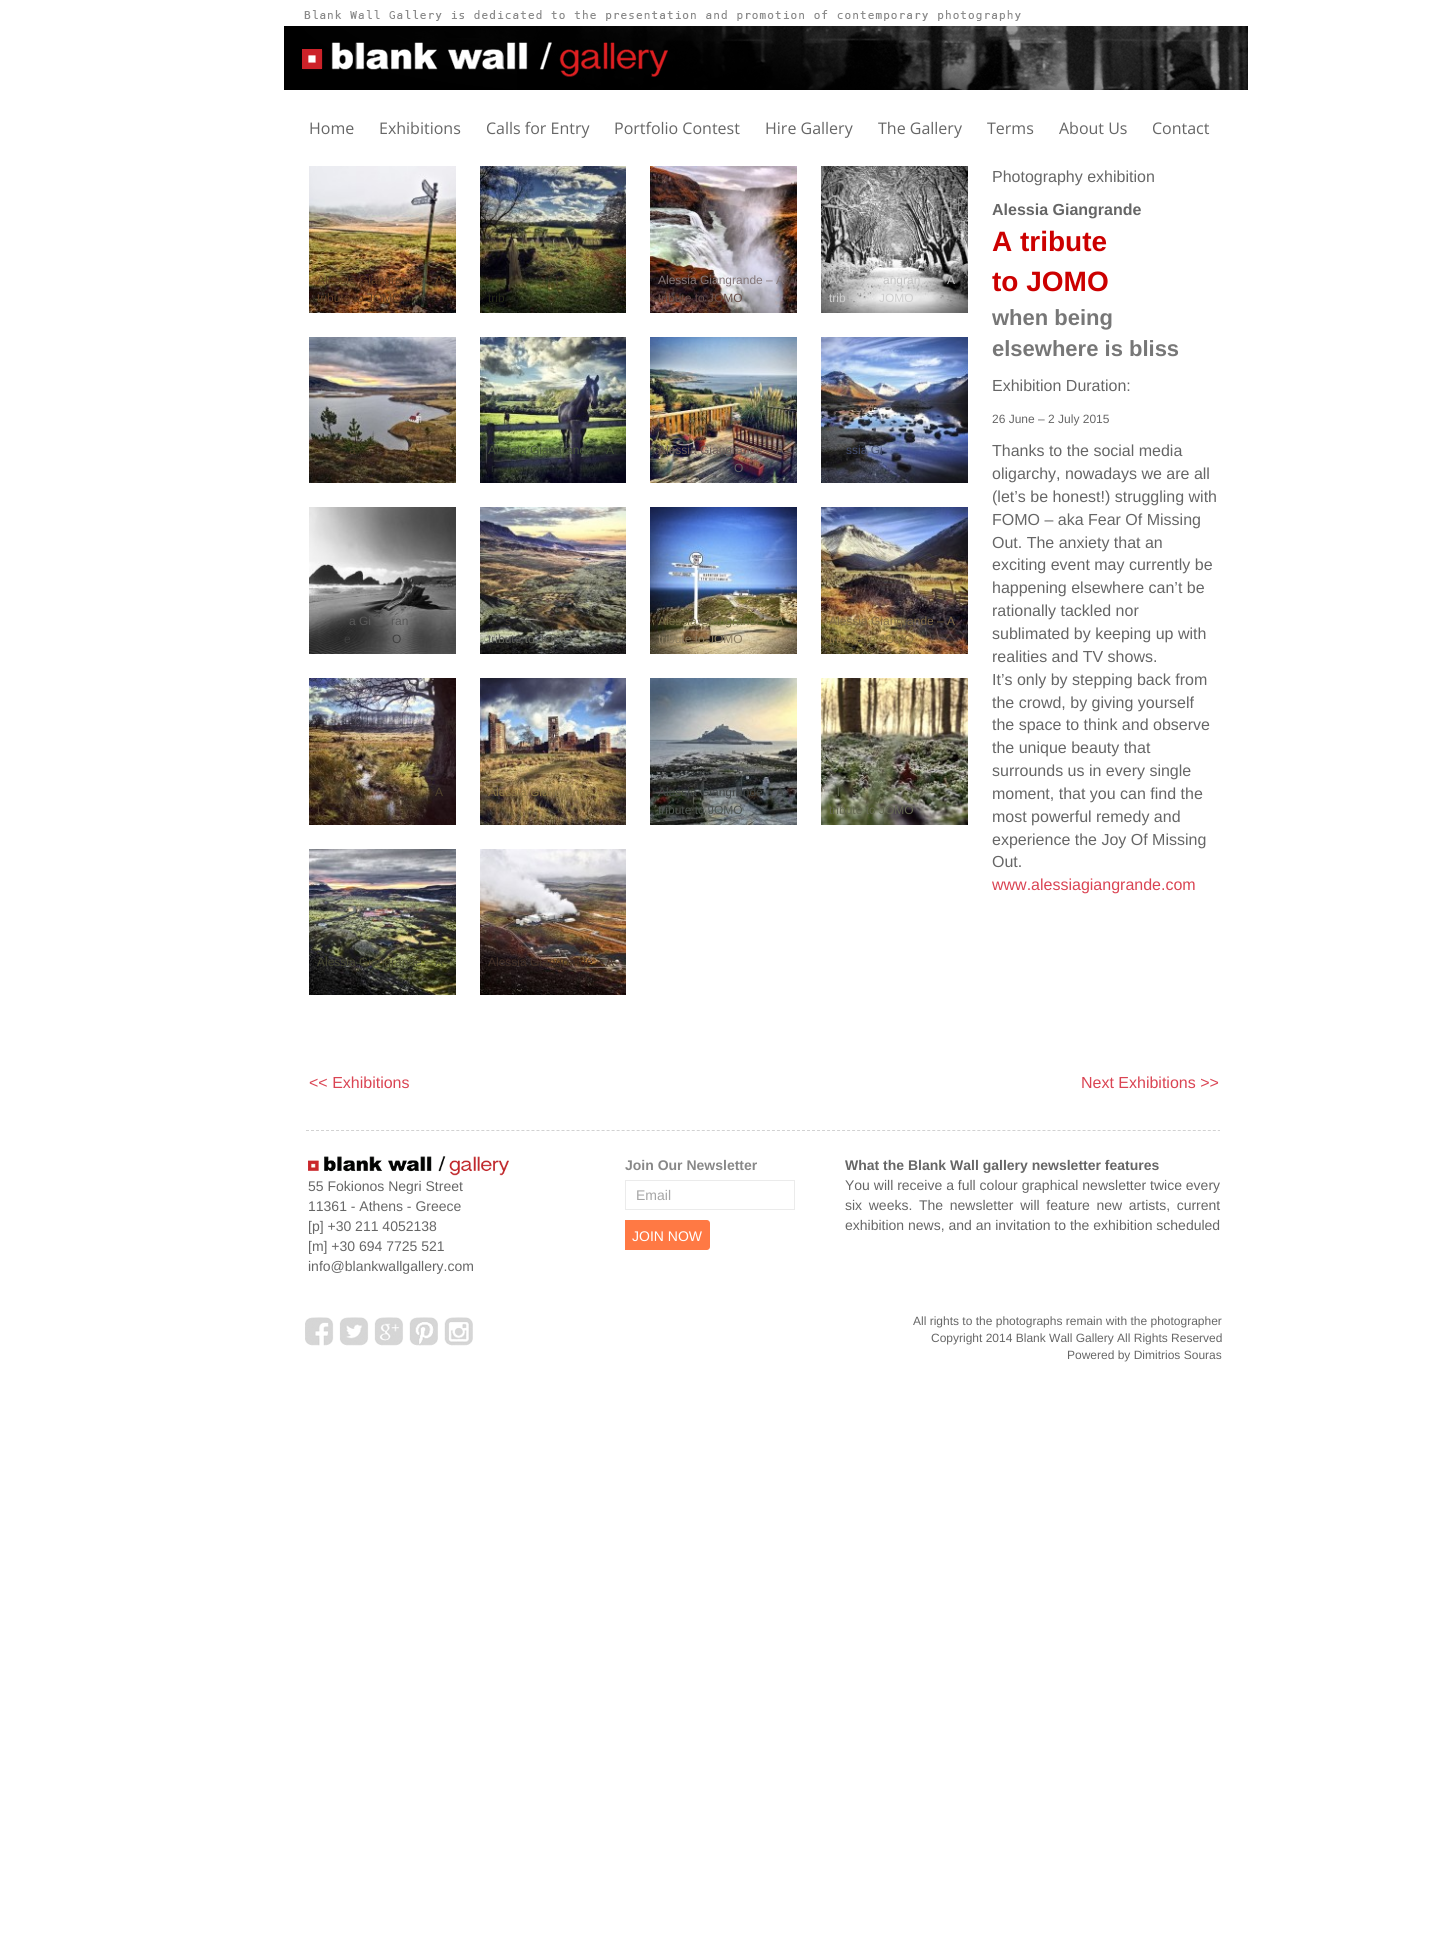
import math
import cairocffi as cairo

surface = cairo.ImageSurface(cairo.FORMAT_RGB24, 1448, 1934)
ctx = cairo.Context(surface)
options = cairo.FontOptions()
options.set_hint_metrics(cairo.HINT_METRICS_OFF)
options.set_hint_style(cairo.HINT_STYLE_NONE)
ctx.set_font_options(options)
ctx.set_miter_limit(4)


def rgb(r, g, b):
    ctx.set_source_rgb(r / 255, g / 255, b / 255)


def face(family, size, italic, bold):
    ctx.select_font_face(family, cairo.FONT_SLANT_ITALIC if italic else cairo.FONT_SLANT_NORMAL, cairo.FONT_WEIGHT_BOLD if bold else cairo.FONT_WEIGHT_NORMAL)
    ctx.set_font_size(size)


def label(x, y, s):
    ctx.move_to(x, y)
    ctx.show_text(s)


def tracked(x, y, s, letter, word):
    ctx.move_to(x, y)
    for ch in s:
        ctx.show_text(ch)
        ctx.rel_move_to(letter + word * (ch == ' '), 0)


def image(path, x, y, w, h):
    ctx.save()
    ctx.set_source_surface(cairo.ImageSurface.create_from_png(path), x, y)
    ctx.rectangle(x, y, w, h)
    ctx.fill()
    ctx.restore()


rgb(255, 255, 255)
ctx.paint()
image('image0.png', 284, 10, 964, 80)
face('Open Sans', 16, 0, 0)
rgb(102, 102, 102)
label(309, 134, 'Home')
label(379, 134, 'Exhibitions')
label(486, 134, 'Calls for Entry')
label(614, 134, 'Portfolio Contest')
label(765, 134, 'Hire Gallery')
label(878, 134, 'The Gallery')
label(987, 134, 'Terms')
label(1059, 134, 'About Us')
label(1152, 134, 'Contact')
image('image1.png', 309, 166, 147, 147)
face('Liberation Sans', 12, 0, 0)
rgb(96, 63, 37)
label(317, 284, 'Alessia Giangrande – A')
label(317, 302, 'tribute to JOMO')
image('image2.png', 480, 166, 146, 147)
rgb(36, 41, 22)
label(488, 302, 'trib')
image('image3.png', 650, 166, 147, 147)
rgb(131, 118, 120)
label(658, 284, 'Alessia Giangrande – A')
rgb(105, 81, 75)
label(658, 302, 'tribute to JOMO')
image('image4.png', 821, 166, 147, 147)
rgb(194, 194, 194)
label(829, 284, 'A')
label(883, 284, 'angran')
label(937, 284, '– A')
rgb(206, 206, 206)
label(829, 302, 'trib')
label(879, 302, 'JOMO')
image('image5.png', 309, 337, 147, 146)
rgb(81, 68, 45)
label(349, 454, 'a')
image('image6.png', 480, 337, 146, 146)
rgb(71, 86, 58)
label(488, 454, 'Alessia Giangrande – A')
rgb(35, 40, 45)
label(491, 472, 'r')
image('image7.png', 650, 337, 147, 146)
rgb(110, 94, 89)
label(658, 454, 'Alessia Giangrande – A')
rgb(102, 102, 102)
label(734, 472, 'O')
image('image8.png', 821, 337, 147, 146)
rgb(70, 80, 114)
label(846, 454, 'ssia Gi')
image('image9.png', 309, 507, 147, 147)
rgb(89, 89, 89)
label(349, 625, 'a Gi')
label(391, 625, 'ran')
rgb(63, 63, 63)
label(344, 643, 'e')
label(392, 643, 'O')
image('image10.png', 480, 507, 146, 147)
rgb(63, 57, 47)
label(505, 625, 's')
rgb(97, 99, 92)
label(488, 643, 'tribute to JOMO')
image('image11.png', 650, 507, 147, 147)
rgb(117, 111, 72)
label(658, 625, 'Alessia Giangrande – A')
rgb(139, 125, 98)
label(658, 643, 'tribute to JOMO')
image('image12.png', 821, 507, 147, 147)
rgb(127, 107, 72)
label(829, 625, 'Alessia Giangrande – A')
rgb(140, 119, 68)
label(829, 643, 'tribute to JOMO')
image('image13.png', 309, 678, 147, 147)
rgb(81, 68, 45)
label(435, 796, 'A')
rgb(74, 58, 44)
label(317, 814, 't')
image('image14.png', 480, 678, 146, 147)
rgb(140, 119, 68)
label(488, 796, 'Alessia Giangrande – A')
image('image15.png', 650, 678, 147, 147)
rgb(68, 72, 71)
label(658, 796, 'Alessia Giangrande – A')
rgb(79, 85, 81)
label(658, 814, 'tribute to JOMO')
image('image16.png', 821, 678, 147, 147)
rgb(100, 104, 82)
label(837, 796, 'l')
label(852, 796, 's')
label(829, 814, 'tribute to JOMO')
image('image17.png', 309, 849, 147, 146)
rgb(72, 73, 51)
label(317, 966, 'Alessia Giangrande – A')
image('image18.png', 480, 849, 146, 146)
rgb(67, 49, 39)
label(488, 966, 'Alessia Giangrande – A')
face('Liberation Sans', 16, 0, 0)
rgb(102, 102, 102)
label(992, 182, 'Photography exhibition')
face('Liberation Sans', 16, 0, 1)
label(992, 215, 'Alessia Giangrande')
face('Liberation Sans', 28, 0, 1)
rgb(204, 0, 0)
label(992, 251, 'A tribute')
label(992, 291, 'to JOMO')
face('Liberation Sans', 22, 0, 1)
rgb(119, 119, 119)
label(992, 325, 'when being')
label(992, 356, 'elsewhere is bliss')
face('Liberation Sans', 16, 0, 0)
rgb(102, 102, 102)
label(992, 391, 'Exhibition Duration:')
face('Liberation Sans', 12, 0, 0)
label(992, 423, '26 June – 2 July 2015')
face('Liberation Sans', 16, 0, 0)
label(992, 456, 'Thanks to the social media')
label(992, 479, 'oligarchy, nowadays we are all')
label(992, 502, '(let’s be honest!) struggling with')
label(992, 525, 'FOMO – aka Fear Of Missing')
label(992, 548, 'Out. The anxiety that an')
label(992, 570, 'exciting event may currently be')
label(992, 593, 'happening elsewhere can’t be')
label(992, 616, 'rationally tackled nor')
label(992, 639, 'sublimated by keeping up with')
label(992, 662, 'realities and TV shows.')
label(992, 685, 'It’s only by stepping back from')
label(992, 708, 'the crowd, by giving yourself')
label(992, 730, 'the space to think and observe')
label(992, 753, 'the unique beauty that')
label(992, 776, 'surrounds us in every single')
label(992, 799, 'moment, that you can find the')
label(992, 822, 'most powerful remedy and')
label(992, 845, 'experience the Joy Of Missing')
label(992, 867, 'Out.')
rgb(218, 68, 83)
label(992, 890, 'www.alessiagiangrande.com')
label(309, 1088, '<< Exhibitions')
label(1081, 1088, 'Next Exhibitions >>')
ctx.new_path()
ctx.move_to(306, 1130.5)
ctx.line_to(1220, 1130.5)
rgb(210, 210, 210)
ctx.set_line_width(1)
ctx.set_dash([3, 2.01])
ctx.stroke()
image('image19.png', 308, 1156, 201, 20)
face('Liberation Sans', 14, 0, 0)
rgb(102, 102, 102)
label(308, 1191, '55 Fokionos Negri Street')
label(308, 1211, '11361 - Athens - Greece')
label(308, 1231, '[p] +30 211 4052138')
label(308, 1251, '[m] +30 694 7725 521')
label(308, 1271, 'info@blankwallgallery.com')
face('Liberation Sans', 14, 0, 1)
rgb(136, 136, 136)
label(625, 1170, 'Join Our Newsletter')
ctx.rectangle(625.5, 1180.5, 169, 29)
rgb(235, 235, 235)
ctx.set_dash([])
ctx.stroke()
face('Liberation Sans', 14, 0, 0)
rgb(165, 165, 165)
label(636, 1200, 'Email')
rgb(255, 121, 68)
ctx.new_path()
ctx.move_to(625, 1220)
ctx.line_to(707, 1220)
ctx.curve_to(708.5, 1220, 710, 1221.5, 710, 1223)
ctx.line_to(710, 1247)
ctx.curve_to(710, 1248.5, 708.5, 1250, 707, 1250)
ctx.line_to(625, 1250)
ctx.close_path()
ctx.fill()
rgb(255, 255, 255)
label(632, 1241, 'JOIN NOW')
face('Liberation Sans', 14, 0, 1)
rgb(102, 102, 102)
label(845, 1170, 'What the Blank Wall gallery newsletter features')
face('Liberation Sans', 14, 0, 0)
label(845, 1190, 'You will receive a full colour graphical newsletter twice every')
tracked(845, 1210, 'six weeks. The newsletter will feature new artists, current', 0, 2.75)
label(845, 1230, 'exhibition news, and an invitation to the exhibition scheduled')
image('image20.png', 305, 1317, 168, 29)
face('Liberation Sans', 12, 0, 0)
label(913, 1325, 'All rights to the photographs remain with the photographer')
label(931, 1342, 'Copyright 2014 Blank Wall Gallery All Rights Reserved')
label(1067, 1359, 'Powered by Dimitrios Souras')
surface.write_to_png('render.png')
